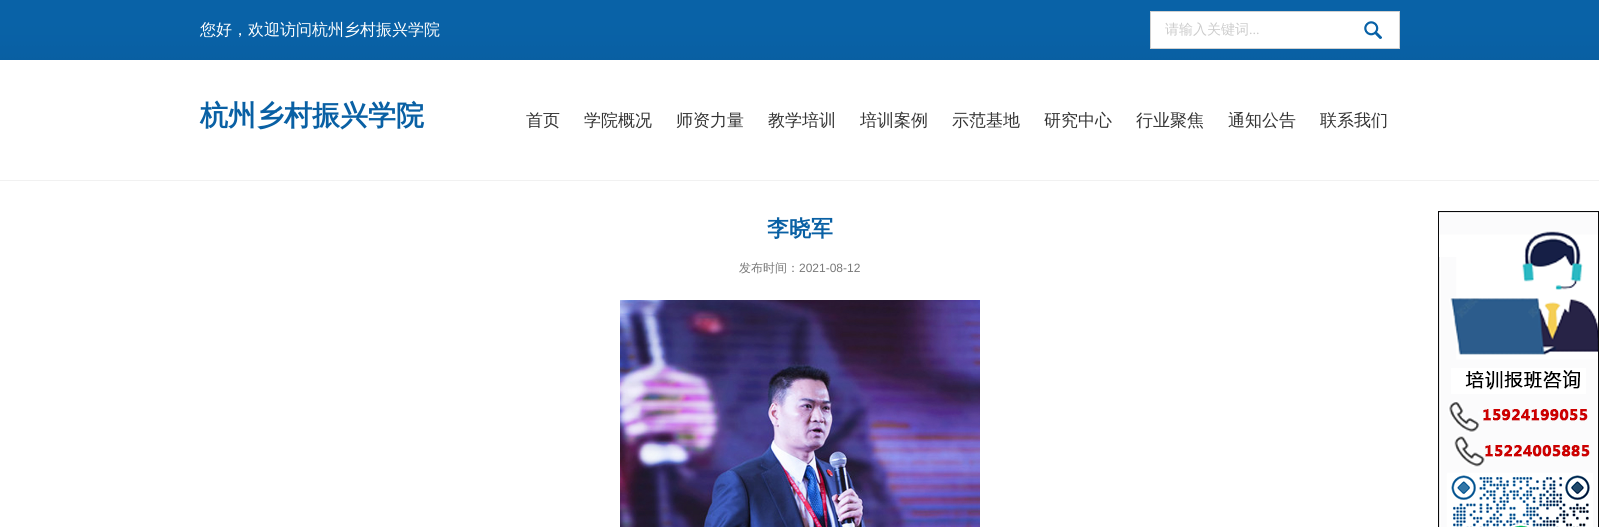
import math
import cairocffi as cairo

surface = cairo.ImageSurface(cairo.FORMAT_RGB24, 1599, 527)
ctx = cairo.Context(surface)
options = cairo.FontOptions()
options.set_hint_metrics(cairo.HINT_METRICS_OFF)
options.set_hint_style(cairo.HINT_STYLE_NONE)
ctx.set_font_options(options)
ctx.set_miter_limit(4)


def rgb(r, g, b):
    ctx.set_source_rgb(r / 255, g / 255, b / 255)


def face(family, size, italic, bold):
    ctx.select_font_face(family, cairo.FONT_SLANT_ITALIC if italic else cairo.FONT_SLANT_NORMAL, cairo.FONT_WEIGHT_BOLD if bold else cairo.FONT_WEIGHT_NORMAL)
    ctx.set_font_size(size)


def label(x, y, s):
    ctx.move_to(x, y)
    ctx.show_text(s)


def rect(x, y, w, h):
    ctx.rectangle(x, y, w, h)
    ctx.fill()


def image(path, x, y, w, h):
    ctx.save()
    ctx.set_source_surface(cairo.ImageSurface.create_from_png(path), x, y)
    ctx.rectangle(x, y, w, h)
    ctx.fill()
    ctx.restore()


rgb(255, 255, 255)
ctx.paint()
image('image0.png', 0, 0, 1599, 60)
face('WenQuanYi Zen Hei Medium', 16, 0, 0)
rgb(255, 255, 255)
label(200, 35, '您好，欢迎访问杭州乡村振兴学院')
ctx.rectangle(1150.5, 11.5, 249, 37)
rgb(208, 208, 208)
ctx.set_line_width(1)
ctx.stroke()
rgb(255, 255, 255)
rect(1151, 12, 248, 36)
face('WenQuanYi Zen Hei Medium', 14, 0, 0)
rgb(204, 204, 204)
label(1165, 34, '请输入关键词')
face('Liberation Serif', 14, 0, 0)
label(1249, 34, '...')
image('image1.png', 1364, 21, 18, 18)
rgb(241, 241, 241)
rect(0, 180, 1599, 1)
face('WenQuanYi Zen Hei', 28, 0, 1)
rgb(9, 96, 164)
label(200, 125, '杭州乡村振兴学院')
face('WenQuanYi Zen Hei Medium', 17, 0, 0)
rgb(51, 51, 51)
label(526, 126, '首页')
label(584, 126, '学院概况')
label(676, 126, '师资力量')
label(768, 126, '教学培训')
label(860, 126, '培训案例')
label(952, 126, '示范基地')
label(1044, 126, '研究中心')
label(1136, 126, '行业聚焦')
label(1228, 126, '通知公告')
label(1320, 126, '联系我们')
face('WenQuanYi Zen Hei', 22, 0, 1)
rgb(9, 96, 164)
label(767, 236, '李晓军')
face('WenQuanYi Zen Hei Medium', 12, 0, 0)
rgb(120, 120, 120)
label(739, 272, '发布时间：')
face('Liberation Sans', 12, 0, 0)
label(799, 272, '2021-08-12')
image('image2.png', 620, 300, 360, 227)
ctx.rectangle(1438.5, 211.5, 160, 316)
rgb(9, 9, 10)
ctx.stroke()
image('image3.png', 1439, 212, 159, 315)
surface.write_to_png('render.png')
